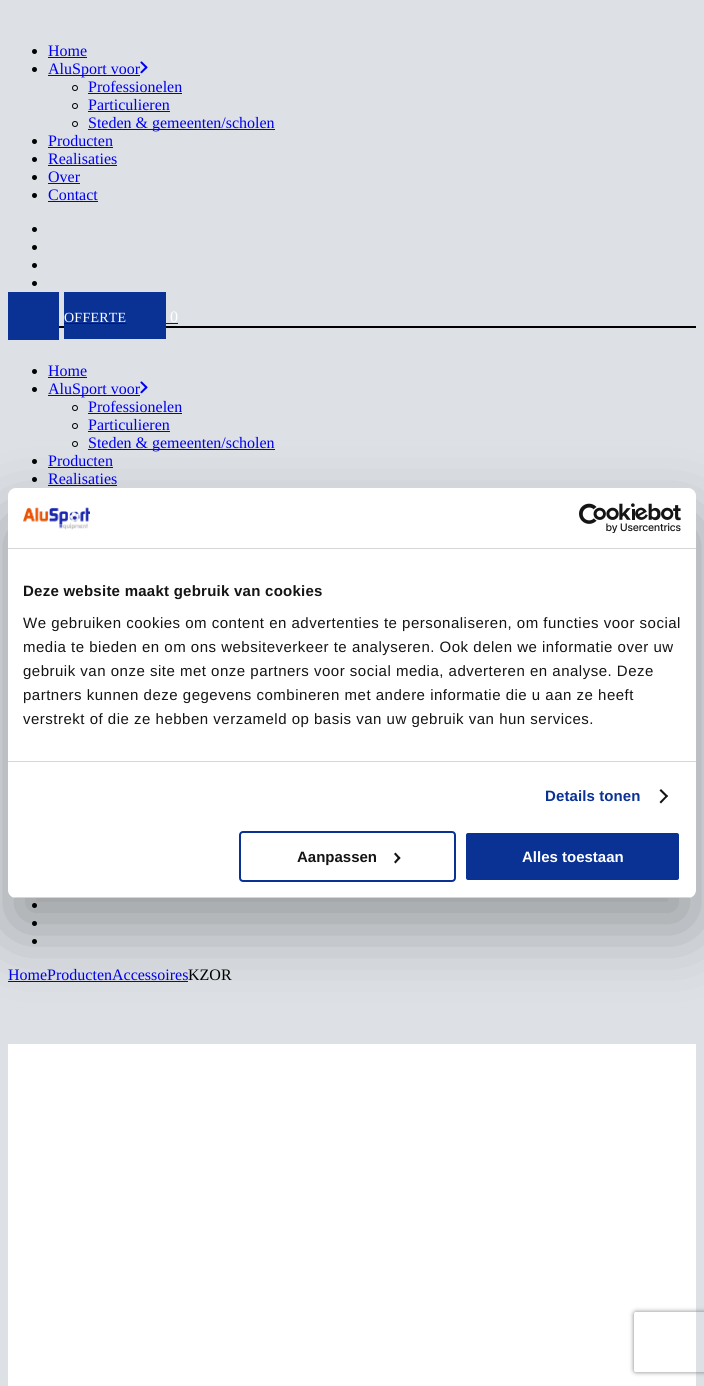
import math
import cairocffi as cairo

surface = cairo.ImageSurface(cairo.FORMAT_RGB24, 704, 1386)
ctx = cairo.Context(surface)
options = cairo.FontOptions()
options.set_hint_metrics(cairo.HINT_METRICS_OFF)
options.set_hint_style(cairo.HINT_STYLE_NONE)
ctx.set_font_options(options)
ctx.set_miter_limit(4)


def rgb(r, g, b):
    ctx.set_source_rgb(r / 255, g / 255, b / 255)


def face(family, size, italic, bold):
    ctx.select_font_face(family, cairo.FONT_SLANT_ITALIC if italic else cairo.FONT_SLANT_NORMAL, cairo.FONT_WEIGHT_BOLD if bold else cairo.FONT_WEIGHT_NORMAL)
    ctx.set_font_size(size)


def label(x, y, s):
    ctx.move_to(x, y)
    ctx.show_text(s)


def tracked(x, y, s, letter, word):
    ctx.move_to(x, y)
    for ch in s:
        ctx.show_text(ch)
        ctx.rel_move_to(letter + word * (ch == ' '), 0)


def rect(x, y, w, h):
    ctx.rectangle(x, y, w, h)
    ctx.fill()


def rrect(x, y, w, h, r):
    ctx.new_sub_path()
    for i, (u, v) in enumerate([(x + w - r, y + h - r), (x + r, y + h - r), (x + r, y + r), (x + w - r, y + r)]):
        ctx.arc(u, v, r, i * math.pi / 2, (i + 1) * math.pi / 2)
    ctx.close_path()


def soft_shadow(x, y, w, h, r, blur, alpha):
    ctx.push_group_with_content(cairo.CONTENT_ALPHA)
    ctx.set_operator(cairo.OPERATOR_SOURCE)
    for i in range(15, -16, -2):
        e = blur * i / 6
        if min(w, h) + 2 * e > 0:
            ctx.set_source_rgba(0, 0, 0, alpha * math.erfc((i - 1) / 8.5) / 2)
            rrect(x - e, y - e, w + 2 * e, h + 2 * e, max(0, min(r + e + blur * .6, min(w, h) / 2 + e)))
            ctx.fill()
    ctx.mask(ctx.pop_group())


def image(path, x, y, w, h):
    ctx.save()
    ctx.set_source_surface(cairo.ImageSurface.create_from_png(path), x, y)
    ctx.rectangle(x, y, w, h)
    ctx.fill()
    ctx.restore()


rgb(221, 225, 229)
ctx.paint()
rgb(0, 0, 0)
rect(59, 326, 637, 2)
ctx.arc(34.5, 51.5, 2.5, 0, 2 * math.pi)
ctx.fill()
face('Liberation Serif', 16, 0, 0)
rgb(0, 0, 238)
label(48, 56, 'Home')
rect(48, 57, 39, 1)
rgb(0, 0, 0)
ctx.new_path()
ctx.arc(34.5, 69.5, 2.5, 0, 2 * math.pi)
ctx.fill()
rgb(0, 0, 238)
rect(48, 75, 92, 1)
label(48, 74, 'AluSport voor')
image('image0.png', 140, 61, 8, 13)
ctx.arc(75, 88, 2.5, 0, 2 * math.pi)
rgb(0, 0, 0)
ctx.set_line_width(1)
ctx.stroke()
rgb(0, 0, 238)
label(88, 92, 'Professionelen')
rect(88, 93, 94, 1)
ctx.new_path()
ctx.arc(75, 106, 2.5, 0, 2 * math.pi)
rgb(0, 0, 0)
ctx.stroke()
rgb(0, 0, 238)
label(88, 110, 'Particulieren')
rect(88, 111, 82, 1)
ctx.new_path()
ctx.arc(75, 124, 2.5, 0, 2 * math.pi)
rgb(0, 0, 0)
ctx.stroke()
rgb(0, 0, 238)
rect(88, 129, 187, 1)
label(88, 128, 'Steden & gemeenten/scholen')
rgb(0, 0, 0)
ctx.new_path()
ctx.arc(34.5, 141.5, 2.5, 0, 2 * math.pi)
ctx.fill()
rgb(0, 0, 238)
label(48, 146, 'Producten')
rect(48, 147, 65, 1)
rgb(0, 0, 0)
ctx.new_path()
ctx.arc(34.5, 159.5, 2.5, 0, 2 * math.pi)
ctx.fill()
rgb(0, 0, 238)
label(48, 164, 'Realisaties')
rect(48, 165, 69, 1)
rgb(0, 0, 0)
ctx.new_path()
ctx.arc(34.5, 177.5, 2.5, 0, 2 * math.pi)
ctx.fill()
rgb(0, 0, 238)
label(48, 182, 'Over')
rect(48, 183, 32, 1)
rgb(0, 0, 0)
ctx.new_path()
ctx.arc(34.5, 195.5, 2.5, 0, 2 * math.pi)
ctx.fill()
rgb(0, 0, 238)
label(48, 200, 'Contact')
rect(48, 201, 50, 1)
rgb(0, 0, 0)
ctx.new_path()
ctx.arc(34.5, 229.5, 2.5, 0, 2 * math.pi)
ctx.fill()
ctx.arc(34.5, 247.5, 2.5, 0, 2 * math.pi)
ctx.fill()
ctx.arc(34.5, 265.5, 2.5, 0, 2 * math.pi)
ctx.fill()
ctx.arc(34.5, 283.5, 2.5, 0, 2 * math.pi)
ctx.fill()
rgb(10, 49, 148)
rect(64, 292, 102, 47)
face('Liberation Serif', 14, 0, 0)
rgb(255, 255, 255)
tracked(64, 322, 'OFFERTE', 0.25, 0)
rgb(10, 49, 148)
rect(8, 292, 51, 48)
rgb(0, 0, 238)
rect(64, 323, 62, 1)
face('Liberation Serif', 16, 0, 0)
rgb(255, 255, 255)
label(170, 322, '0')
rgb(0, 0, 238)
rect(166, 323, 12, 1)
rgb(0, 0, 0)
ctx.new_path()
ctx.arc(34.5, 371.5, 2.5, 0, 2 * math.pi)
ctx.fill()
rgb(0, 0, 238)
label(48, 376, 'Home')
rect(48, 377, 39, 1)
rgb(0, 0, 0)
ctx.new_path()
ctx.arc(34.5, 389.5, 2.5, 0, 2 * math.pi)
ctx.fill()
rgb(0, 0, 238)
rect(48, 395, 92, 1)
label(48, 394, 'AluSport voor')
image('image0.png', 140, 381, 8, 13)
ctx.arc(75, 408, 2.5, 0, 2 * math.pi)
rgb(0, 0, 0)
ctx.stroke()
rgb(0, 0, 238)
label(88, 412, 'Professionelen')
rect(88, 413, 94, 1)
ctx.new_path()
ctx.arc(75, 426, 2.5, 0, 2 * math.pi)
rgb(0, 0, 0)
ctx.stroke()
rgb(0, 0, 238)
label(88, 430, 'Particulieren')
rect(88, 431, 82, 1)
ctx.new_path()
ctx.arc(75, 444, 2.5, 0, 2 * math.pi)
rgb(0, 0, 0)
ctx.stroke()
rgb(0, 0, 238)
rect(88, 449, 187, 1)
label(88, 448, 'Steden & gemeenten/scholen')
rgb(0, 0, 0)
ctx.new_path()
ctx.arc(34.5, 461.5, 2.5, 0, 2 * math.pi)
ctx.fill()
rgb(0, 0, 238)
label(48, 466, 'Producten')
rect(48, 467, 65, 1)
rgb(0, 0, 0)
ctx.new_path()
ctx.arc(34.5, 479.5, 2.5, 0, 2 * math.pi)
ctx.fill()
rgb(0, 0, 238)
label(48, 484, 'Realisaties')
rect(48, 485, 69, 1)
rgb(0, 0, 0)
ctx.new_path()
ctx.arc(34.5, 905.5, 2.5, 0, 2 * math.pi)
ctx.fill()
ctx.arc(34.5, 923.5, 2.5, 0, 2 * math.pi)
ctx.fill()
ctx.arc(34.5, 941.5, 2.5, 0, 2 * math.pi)
ctx.fill()
rgb(0, 0, 238)
label(8, 980, 'HomeProductenAccessoires')
rect(8, 981, 180, 1)
rgb(0, 0, 0)
label(188, 980, 'KZOR')
rgb(255, 255, 255)
rect(8, 1044, 688, 342)
rgb(0, 0, 0)
soft_shadow(8, 520, 688, 410, 8, 34, 0.3)
rgb(255, 255, 255)
rrect(8, 488, 688, 410, 8)
ctx.fill()
rgb(214, 214, 214)
rect(8, 548, 688, 1)
image('image1.png', 23, 507, 67, 23)
image('image2.png', 579, 503, 102, 30)
rect(8, 761, 688, 1)
face('Liberation Sans', 15, 0, 1)
rgb(20, 20, 20)
tracked(23, 596, 'Deze website maakt gebruik van cookies', 0.25, 0)
face('Liberation Sans', 15, 0, 0)
tracked(23, 628, 'We gebruiken cookies om content en advertenties te personaliseren, om functies voor social', 0.5, 0)
tracked(23, 652, 'media te bieden en om ons websiteverkeer te analyseren. Ook delen we informatie over uw', 0.5, 0)
tracked(23, 676, 'gebruik van onze site met onze partners voor social media, adverteren en analyse. Deze', 0.5, 0)
tracked(23, 700, 'partners kunnen deze gegevens combineren met andere informatie die u aan ze heeft', 0.5, 0)
tracked(23, 724, 'verstrekt of die ze hebben verzameld op basis van uw gebruik van hun services.', 0.5, 0)
face('Liberation Sans', 15, 0, 1)
rgb(10, 49, 148)
tracked(545, 801, 'Details tonen', 0.1, 0)
rgb(20, 20, 20)
ctx.new_path()
ctx.move_to(661, 789)
ctx.line_to(668, 796)
ctx.line_to(666.5, 797.5)
ctx.line_to(659.5, 790.5)
ctx.close_path()
ctx.fill()
ctx.new_path()
ctx.move_to(666.5, 795)
ctx.line_to(668, 796)
ctx.line_to(661, 803.5)
ctx.line_to(659.5, 802)
ctx.close_path()
ctx.fill()
ctx.save()
rrect(8, 488, 688, 410, 8)
ctx.clip()
rgb(214, 214, 214)
rect(8, 897, 688, 1)
ctx.restore()
rrect(240, 832, 215, 49, 3)
rgb(10, 49, 148)
ctx.set_line_width(2)
ctx.stroke()
rgb(20, 20, 20)
label(297, 862, 'Aanpassen')
ctx.new_path()
ctx.move_to(395.5, 852.5)
ctx.line_to(400.5, 858)
ctx.line_to(399, 859.5)
ctx.line_to(394, 854)
ctx.close_path()
ctx.fill()
ctx.new_path()
ctx.move_to(399, 856.5)
ctx.line_to(400.5, 858)
ctx.line_to(395.5, 863.5)
ctx.line_to(394, 862)
ctx.close_path()
ctx.fill()
rgb(10, 49, 148)
rrect(465, 832, 215, 49, 3)
ctx.fill_preserve()
rgb(255, 255, 255)
ctx.stroke()
label(522, 862, 'Alles toestaan')
ctx.save()
ctx.set_fill_rule(cairo.FILL_RULE_EVEN_ODD)
ctx.new_path()
ctx.move_to(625, 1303)
ctx.line_to(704, 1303)
ctx.line_to(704, 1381)
ctx.line_to(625, 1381)
ctx.close_path()
ctx.move_to(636, 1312)
ctx.line_to(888, 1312)
ctx.curve_to(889, 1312, 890, 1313, 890, 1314)
ctx.line_to(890, 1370)
ctx.curve_to(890, 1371, 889, 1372, 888, 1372)
ctx.line_to(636, 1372)
ctx.curve_to(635, 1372, 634, 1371, 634, 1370)
ctx.line_to(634, 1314)
ctx.curve_to(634, 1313, 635, 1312, 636, 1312)
ctx.close_path()
ctx.clip()
rgb(128, 128, 128)
soft_shadow(634, 1312, 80, 60, 2, 2.5, 1)
ctx.restore()
surface.write_to_png('render.png')
